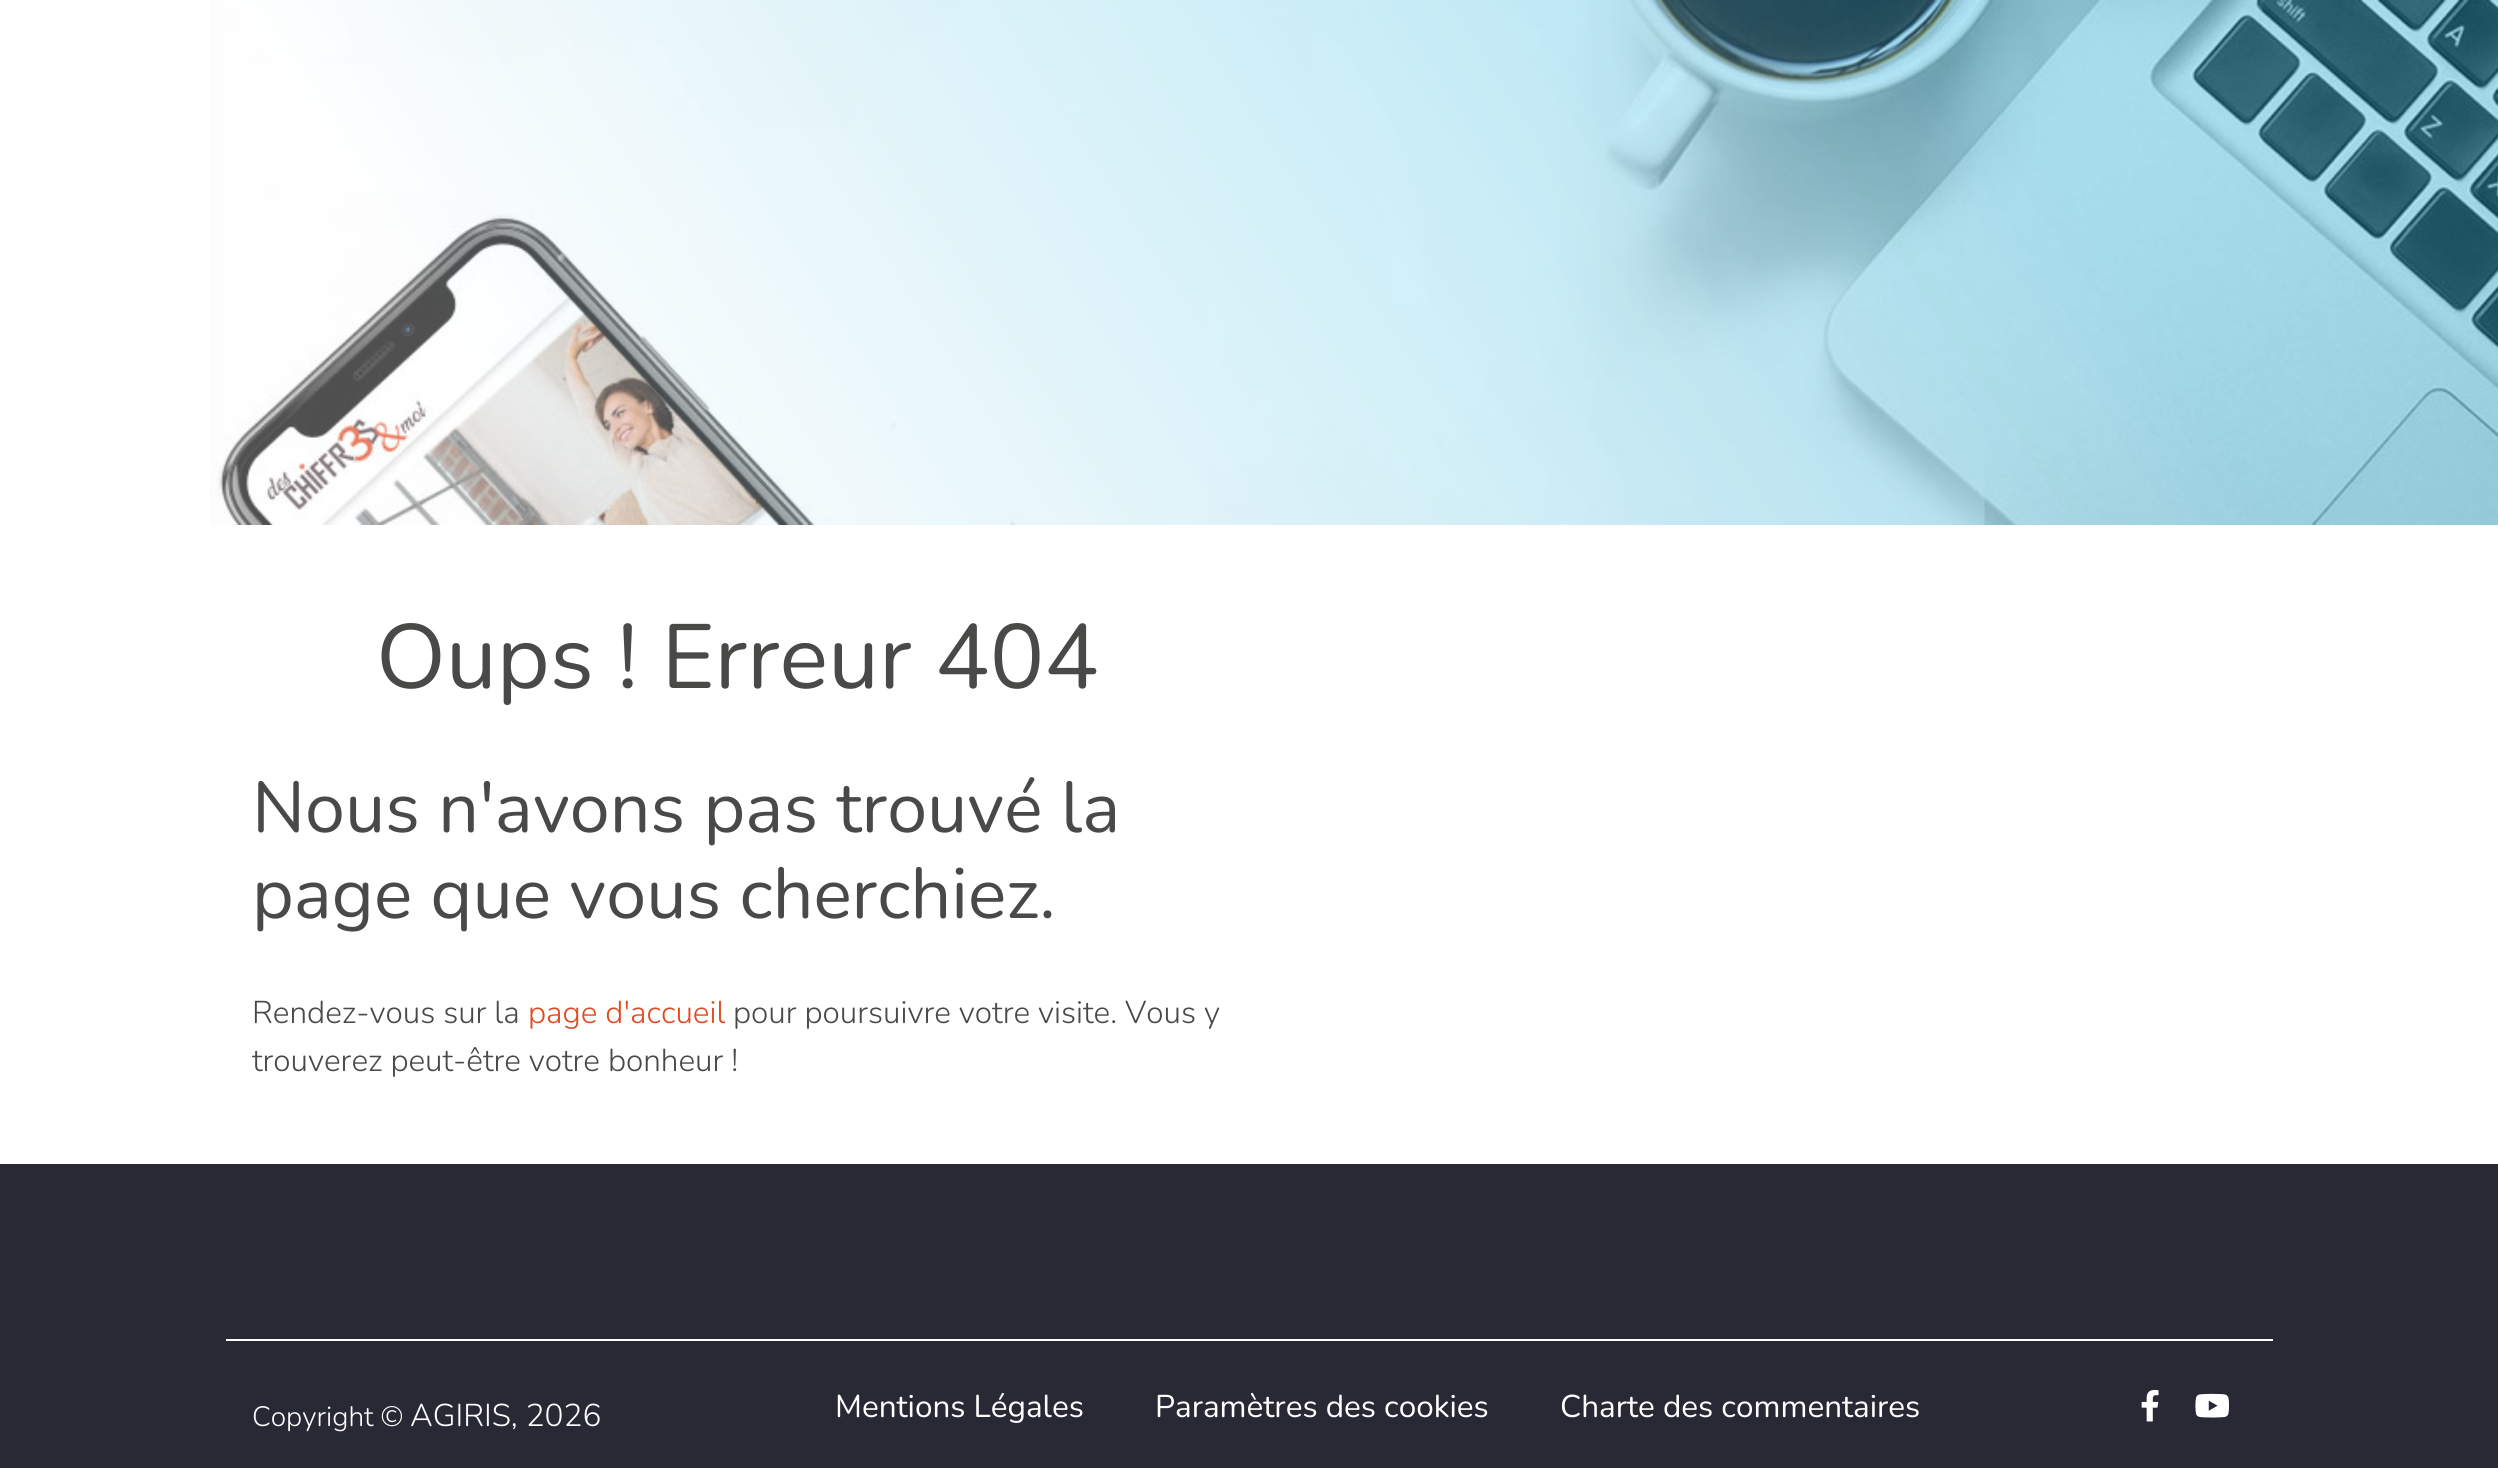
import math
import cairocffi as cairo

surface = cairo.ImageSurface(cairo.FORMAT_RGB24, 2498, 1468)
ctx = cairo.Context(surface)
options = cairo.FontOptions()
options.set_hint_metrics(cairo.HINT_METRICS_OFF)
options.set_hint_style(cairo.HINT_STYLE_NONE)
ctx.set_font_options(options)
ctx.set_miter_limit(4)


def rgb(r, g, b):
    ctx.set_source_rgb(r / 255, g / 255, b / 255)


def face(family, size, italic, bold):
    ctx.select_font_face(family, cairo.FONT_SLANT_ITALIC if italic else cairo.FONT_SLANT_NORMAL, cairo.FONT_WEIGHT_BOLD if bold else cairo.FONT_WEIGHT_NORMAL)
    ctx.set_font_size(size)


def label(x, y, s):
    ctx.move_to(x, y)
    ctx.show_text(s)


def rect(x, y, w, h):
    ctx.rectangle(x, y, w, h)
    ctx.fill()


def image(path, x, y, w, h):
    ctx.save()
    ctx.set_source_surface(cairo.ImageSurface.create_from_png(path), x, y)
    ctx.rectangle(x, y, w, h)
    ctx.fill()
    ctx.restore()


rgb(255, 255, 255)
ctx.paint()
image('image0.png', 210, 0, 2288, 525)
gradient = cairo.LinearGradient(251, 911, 2248, -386)
gradient.add_color_stop_rgba(0.2, 1, 1, 1, 0.31)
gradient.add_color_stop_rgba(0.8, 0.004, 0.671, 0.863, 0.31)
ctx.set_source(gradient)
rect(217, 0, 2281, 525)
face('Nunito', 91, 0, 0)
rgb(73, 73, 72)
label(376, 688, 'Oups ! Erreur 404')
face('Nunito', 71.75, 0, 0)
label(252, 832, 'Nous n\'avons pas trouvé la')
label(252, 918, 'page que vous cherchiez.')
face('Nunito Light', 31.5, 0, 0)
label(252, 1023, 'Rendez-vous sur la')
rgb(226, 73, 32)
label(528, 1023, 'page d\'accueil')
rgb(73, 73, 72)
label(733, 1023, 'pour poursuivre votre visite. Vous y')
label(252, 1071, 'trouverez peut-être votre bonheur !')
rgb(41, 41, 53)
rect(0, 1164, 2498, 304)
rgb(255, 255, 255)
rect(226, 1339, 2047, 2)
face('Nunito Light', 28, 0, 0)
label(252, 1426, 'Copyright ©')
face('Nunito Light', 31.5, 0, 0)
label(410, 1426, 'AGIRIS, 2026')
face('Nunito', 31.5, 0, 0)
label(835, 1417, 'Mentions Légales')
label(1155, 1417, 'Paramètres des cookies')
label(1560, 1417, 'Charte des commentaires')
image('image1.png', 2141, 1389, 18, 33)
image('image2.png', 2195, 1393, 34, 25)
surface.write_to_png('render.png')
